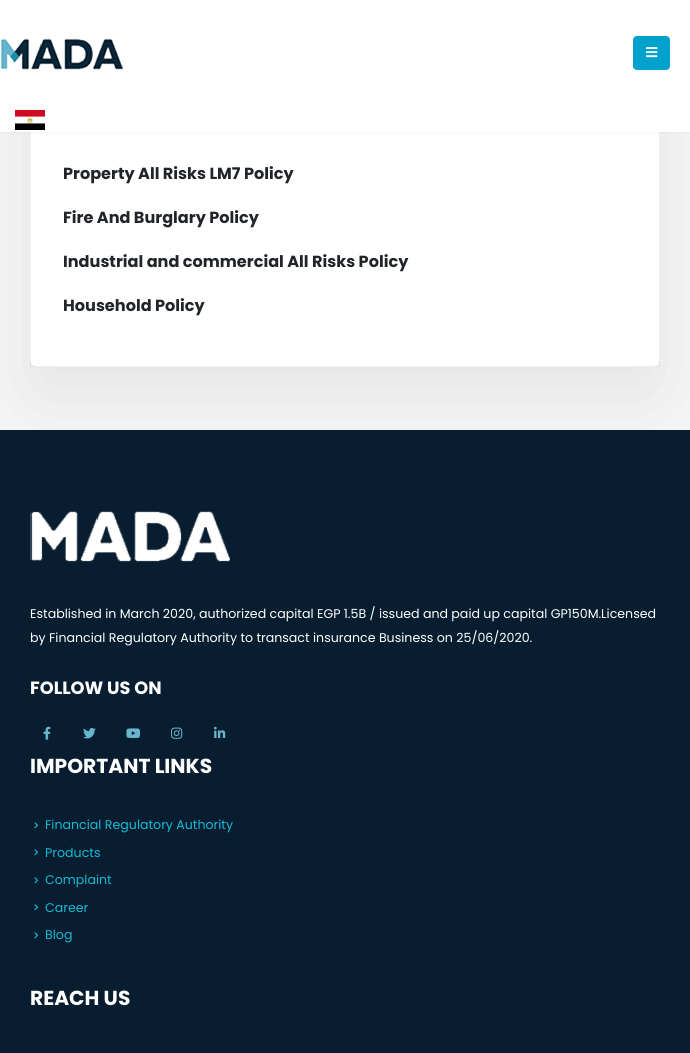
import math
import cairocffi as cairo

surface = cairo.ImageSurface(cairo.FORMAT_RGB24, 690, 1053)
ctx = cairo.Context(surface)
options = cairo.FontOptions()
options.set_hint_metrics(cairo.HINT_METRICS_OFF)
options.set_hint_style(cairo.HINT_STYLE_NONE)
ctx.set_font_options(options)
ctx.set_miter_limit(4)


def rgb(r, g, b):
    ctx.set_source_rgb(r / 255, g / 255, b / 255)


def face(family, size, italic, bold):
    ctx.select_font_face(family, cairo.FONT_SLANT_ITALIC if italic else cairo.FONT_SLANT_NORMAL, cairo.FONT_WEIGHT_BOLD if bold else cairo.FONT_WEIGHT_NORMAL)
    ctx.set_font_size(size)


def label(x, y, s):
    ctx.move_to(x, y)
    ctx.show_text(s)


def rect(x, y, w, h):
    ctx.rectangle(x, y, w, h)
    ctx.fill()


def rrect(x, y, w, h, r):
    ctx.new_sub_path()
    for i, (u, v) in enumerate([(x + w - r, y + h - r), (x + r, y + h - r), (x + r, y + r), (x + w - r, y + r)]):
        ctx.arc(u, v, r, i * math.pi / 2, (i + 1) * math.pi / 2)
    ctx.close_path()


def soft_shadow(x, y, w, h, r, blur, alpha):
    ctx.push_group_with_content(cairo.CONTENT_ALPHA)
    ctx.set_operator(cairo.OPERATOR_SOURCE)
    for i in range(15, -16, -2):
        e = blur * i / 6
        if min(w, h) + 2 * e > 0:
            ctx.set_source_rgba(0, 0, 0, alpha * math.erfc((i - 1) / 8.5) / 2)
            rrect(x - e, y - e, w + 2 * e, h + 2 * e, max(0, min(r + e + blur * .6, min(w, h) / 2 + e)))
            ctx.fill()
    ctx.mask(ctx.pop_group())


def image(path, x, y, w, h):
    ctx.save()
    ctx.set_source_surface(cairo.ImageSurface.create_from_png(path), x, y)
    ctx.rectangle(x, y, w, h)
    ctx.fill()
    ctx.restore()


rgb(247, 247, 247)
ctx.paint()
rgb(187, 187, 187)
soft_shadow(30, -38, 630, 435, 8, 45, 0.33)
rgb(255, 255, 255)
rrect(30, -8, 630, 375, 8)
ctx.fill()
ctx.rectangle(30.5, -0.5, 629, 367)
ctx.set_source_rgba(0, 0, 0, 0.06)
ctx.set_line_width(1)
ctx.stroke()
rgb(0, 0, 0)
soft_shadow(0, 0, 690, 132, 0, 1.5, 0.06)
rgb(255, 255, 255)
rect(0, 0, 690, 132)
image('image0.png', 0, 38, 123, 32)
rgb(0, 161, 205)
rrect(633, 36, 37, 34, 4)
ctx.fill()
image('image1.png', 646, 47, 12, 11)
image('image2.png', 15, 110, 30, 20)
face('Poppins', 16.1, 0, 1)
rgb(33, 37, 41)
label(63, 179, 'Property All Risks LM7 Policy')
label(63, 223, 'Fire And Burglary Policy')
label(63, 267, 'Industrial and commercial All Risks Policy')
label(63, 311, 'Household Policy')
rgb(8, 30, 48)
rect(0, 430, 690, 623)
image('image3.png', 30, 511, 200, 51)
face('Poppins', 12.6, 0, 0)
rgb(255, 255, 255)
label(30, 618, 'Established in March 2020, authorized capital EGP 1.5B / issued and paid up capital GP150M.Licensed')
label(30, 642, 'by Financial Regulatory Authority to transact insurance Business on 25/06/2020.')
face('Poppins', 17.75, 0, 1)
label(30, 694, 'FOLLOW US ON')
image('image4.png', 43, 726, 8, 14)
image('image5.png', 83, 728, 13, 11)
image('image6.png', 126, 728, 14, 10)
image('image7.png', 171, 727, 12, 12)
image('image8.png', 214, 726, 12, 12)
face('Poppins', 20.25, 0, 1)
label(30, 773, 'IMPORTANT LINKS')
rgb(7, 28, 44)
rect(30, 949, 630, 1)
image('image9.png', 34, 822, 5, 7)
face('Poppins', 12.6, 0, 0)
rgb(18, 186, 211)
label(45, 829, 'Financial Regulatory Authority')
rgb(7, 28, 44)
rect(30, 839, 630, 1)
image('image9.png', 34, 849, 5, 7)
rgb(18, 186, 211)
label(45, 857, 'Products')
rgb(7, 28, 44)
rect(30, 866, 630, 1)
image('image9.png', 34, 877, 5, 7)
rgb(18, 186, 211)
label(45, 884, 'Complaint')
rgb(7, 28, 44)
rect(30, 894, 630, 1)
image('image9.png', 34, 904, 5, 7)
rgb(18, 186, 211)
label(45, 912, 'Career')
rgb(7, 28, 44)
rect(30, 921, 630, 1)
image('image9.png', 34, 932, 5, 7)
rgb(18, 186, 211)
label(45, 939, 'Blog')
face('Poppins', 20.25, 0, 1)
rgb(255, 255, 255)
label(30, 1005, 'REACH US')
surface.write_to_png('render.png')
